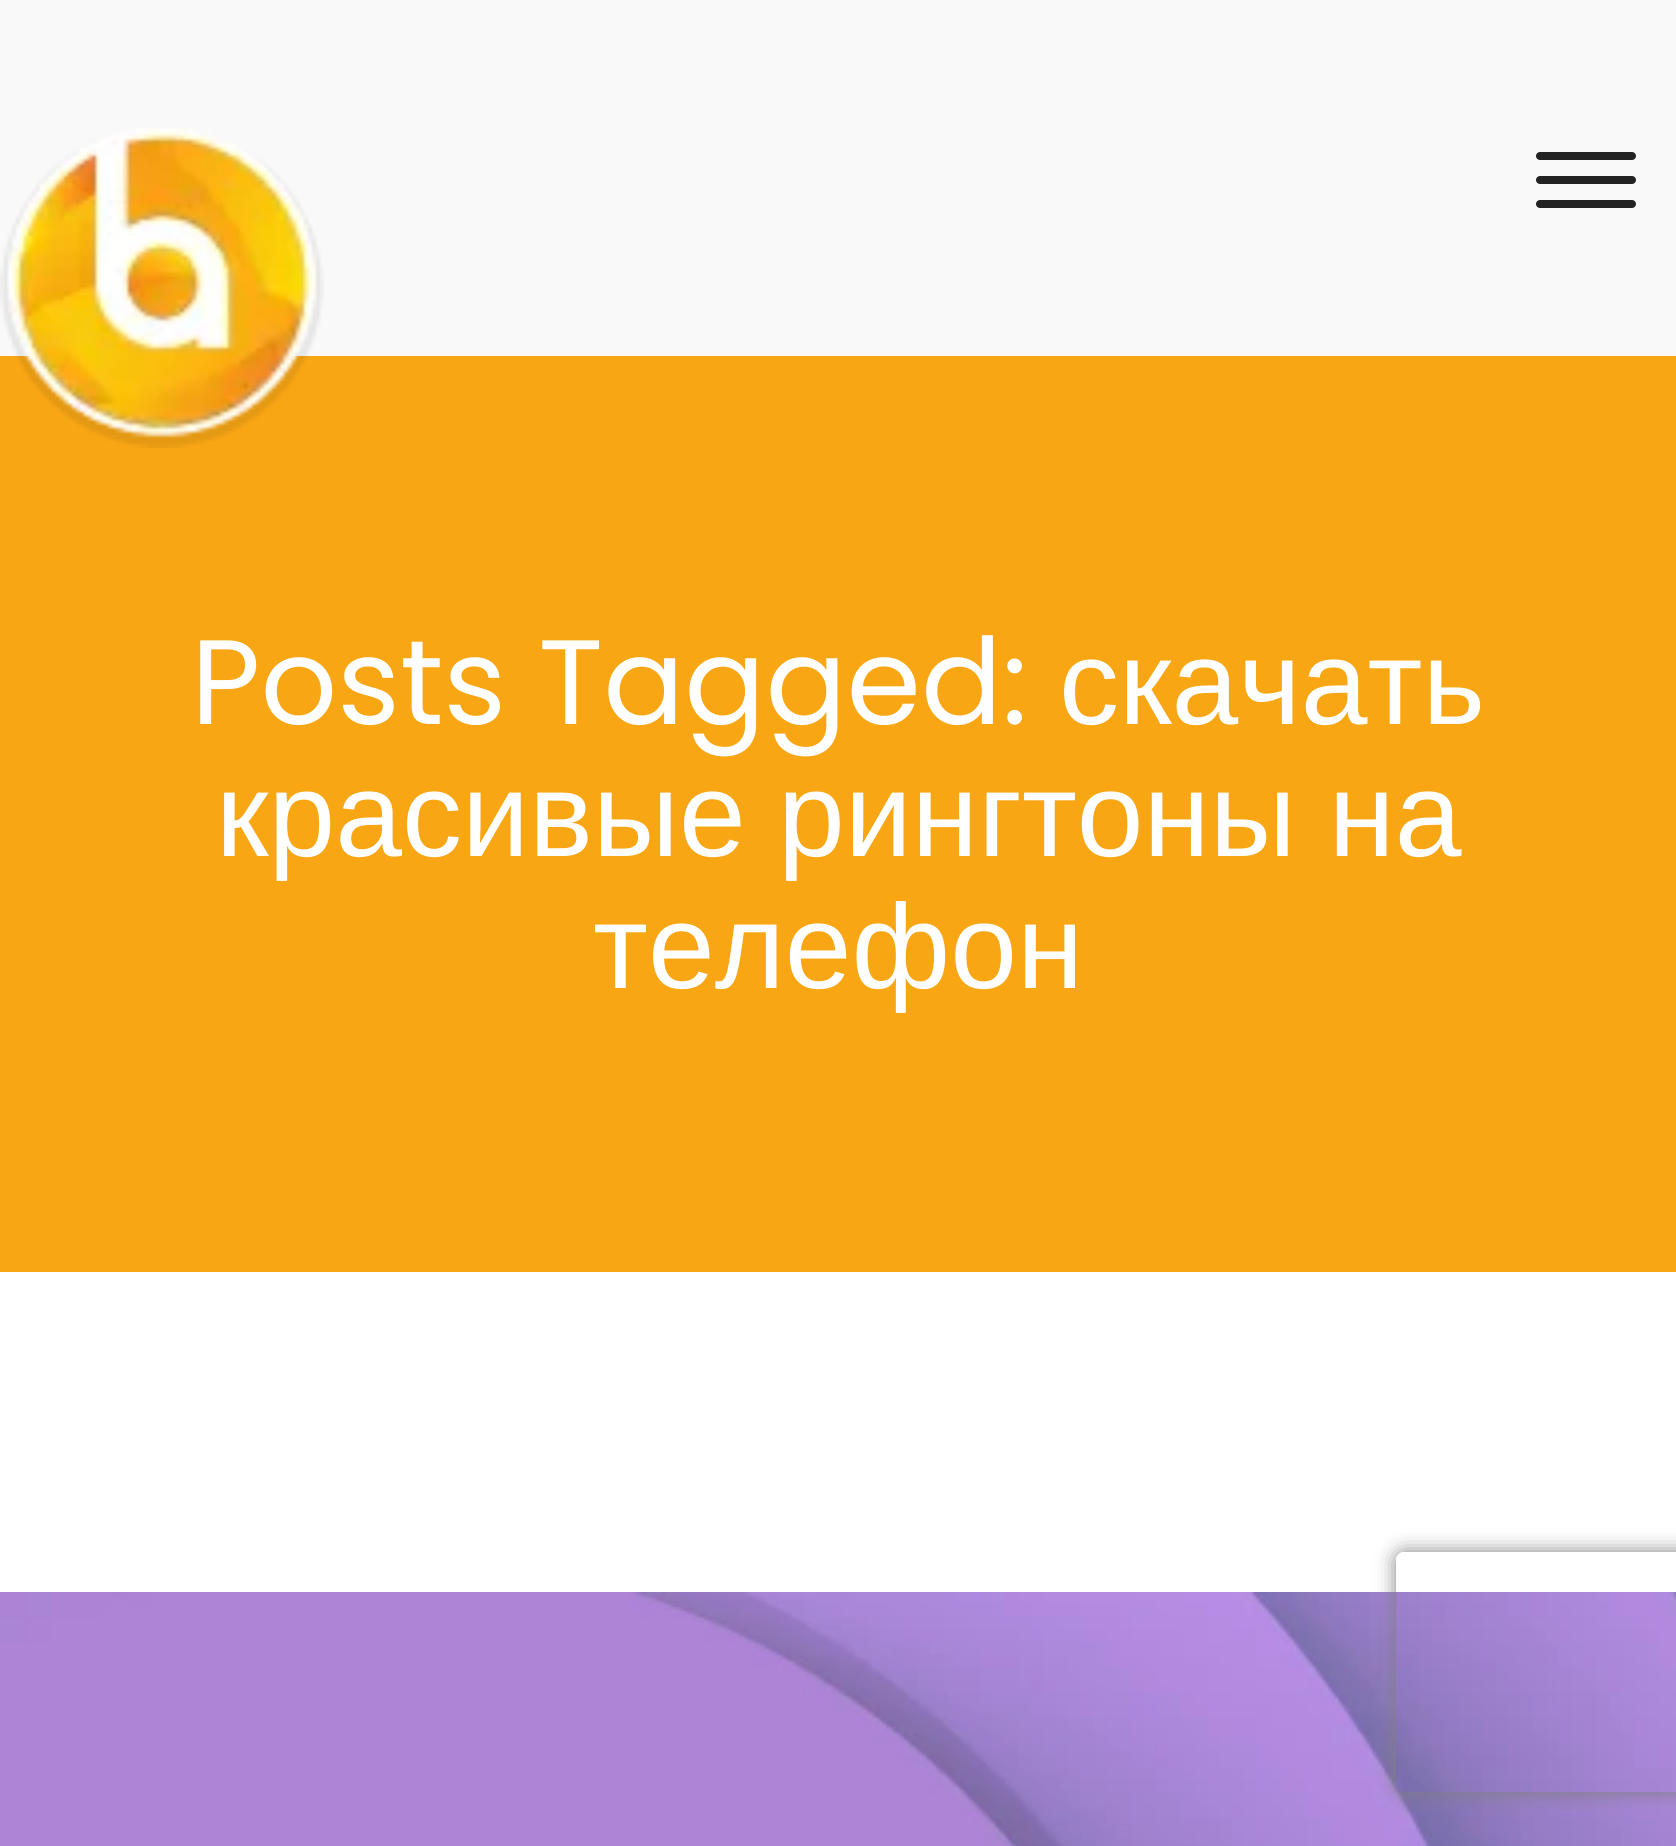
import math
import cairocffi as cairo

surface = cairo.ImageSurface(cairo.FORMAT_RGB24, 1676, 1846)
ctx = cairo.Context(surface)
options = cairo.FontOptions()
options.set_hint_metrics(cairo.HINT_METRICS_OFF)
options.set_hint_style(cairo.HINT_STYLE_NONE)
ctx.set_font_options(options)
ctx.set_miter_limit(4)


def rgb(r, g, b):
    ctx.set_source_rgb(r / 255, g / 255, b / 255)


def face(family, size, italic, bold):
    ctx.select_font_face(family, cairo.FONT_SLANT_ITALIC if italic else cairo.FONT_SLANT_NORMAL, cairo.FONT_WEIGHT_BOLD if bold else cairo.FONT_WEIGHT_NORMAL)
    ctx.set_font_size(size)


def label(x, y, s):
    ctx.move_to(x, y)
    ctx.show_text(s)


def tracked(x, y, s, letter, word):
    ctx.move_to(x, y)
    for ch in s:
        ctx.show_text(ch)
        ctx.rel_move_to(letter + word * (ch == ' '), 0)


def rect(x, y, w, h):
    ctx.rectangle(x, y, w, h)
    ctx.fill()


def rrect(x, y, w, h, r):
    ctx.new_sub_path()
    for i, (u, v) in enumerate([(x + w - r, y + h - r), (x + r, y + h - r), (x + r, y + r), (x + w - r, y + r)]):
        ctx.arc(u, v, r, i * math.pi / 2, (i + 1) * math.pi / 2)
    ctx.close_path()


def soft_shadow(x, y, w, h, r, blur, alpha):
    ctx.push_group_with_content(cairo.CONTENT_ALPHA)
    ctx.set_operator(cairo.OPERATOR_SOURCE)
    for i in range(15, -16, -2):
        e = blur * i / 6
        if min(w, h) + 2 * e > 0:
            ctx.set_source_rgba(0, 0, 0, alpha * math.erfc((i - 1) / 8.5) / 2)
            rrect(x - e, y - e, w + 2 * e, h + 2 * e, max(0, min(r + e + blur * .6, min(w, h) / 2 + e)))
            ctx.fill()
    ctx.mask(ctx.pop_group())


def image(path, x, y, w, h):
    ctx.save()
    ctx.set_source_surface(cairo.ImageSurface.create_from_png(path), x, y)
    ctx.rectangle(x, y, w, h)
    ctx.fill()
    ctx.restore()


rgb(255, 255, 255)
ctx.paint()
rgb(249, 249, 249)
rect(0, 0, 1676, 356)
rgb(248, 166, 20)
rect(0, 356, 1676, 916)
image('image0.png', 0, 128, 324, 320)
rgb(35, 35, 35)
rrect(1536, 152, 100, 8, 4)
ctx.fill()
rrect(1536, 176, 100, 8, 4)
ctx.fill()
rrect(1536, 200, 100, 8, 4)
ctx.fill()
face('Poppins', 120, 0, 0)
rgb(255, 255, 255)
label(191, 724, 'Posts Tagged:')
face('Liberation Sans', 120, 0, 0)
label(1059, 724, 'скачать')
tracked(216, 856, 'красивые рингтоны на', 0, -1)
label(593, 988, 'телефон')
image('image1.png', 0, 1592, 1676, 254)
ctx.save()
ctx.set_fill_rule(cairo.FILL_RULE_EVEN_ODD)
ctx.new_path()
ctx.move_to(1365, 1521)
ctx.line_to(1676, 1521)
ctx.line_to(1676, 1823)
ctx.line_to(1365, 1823)
ctx.close_path()
ctx.move_to(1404, 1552)
ctx.line_to(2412, 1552)
ctx.curve_to(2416.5, 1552, 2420, 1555.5, 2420, 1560)
ctx.line_to(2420, 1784)
ctx.curve_to(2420, 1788.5, 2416.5, 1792, 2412, 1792)
ctx.line_to(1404, 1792)
ctx.curve_to(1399.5, 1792, 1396, 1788.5, 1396, 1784)
ctx.line_to(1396, 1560)
ctx.curve_to(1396, 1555.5, 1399.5, 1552, 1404, 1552)
ctx.close_path()
ctx.clip()
rgb(128, 128, 128)
soft_shadow(1396, 1552, 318, 240, 8, 10, 1)
ctx.restore()
surface.write_to_png('render.png')
